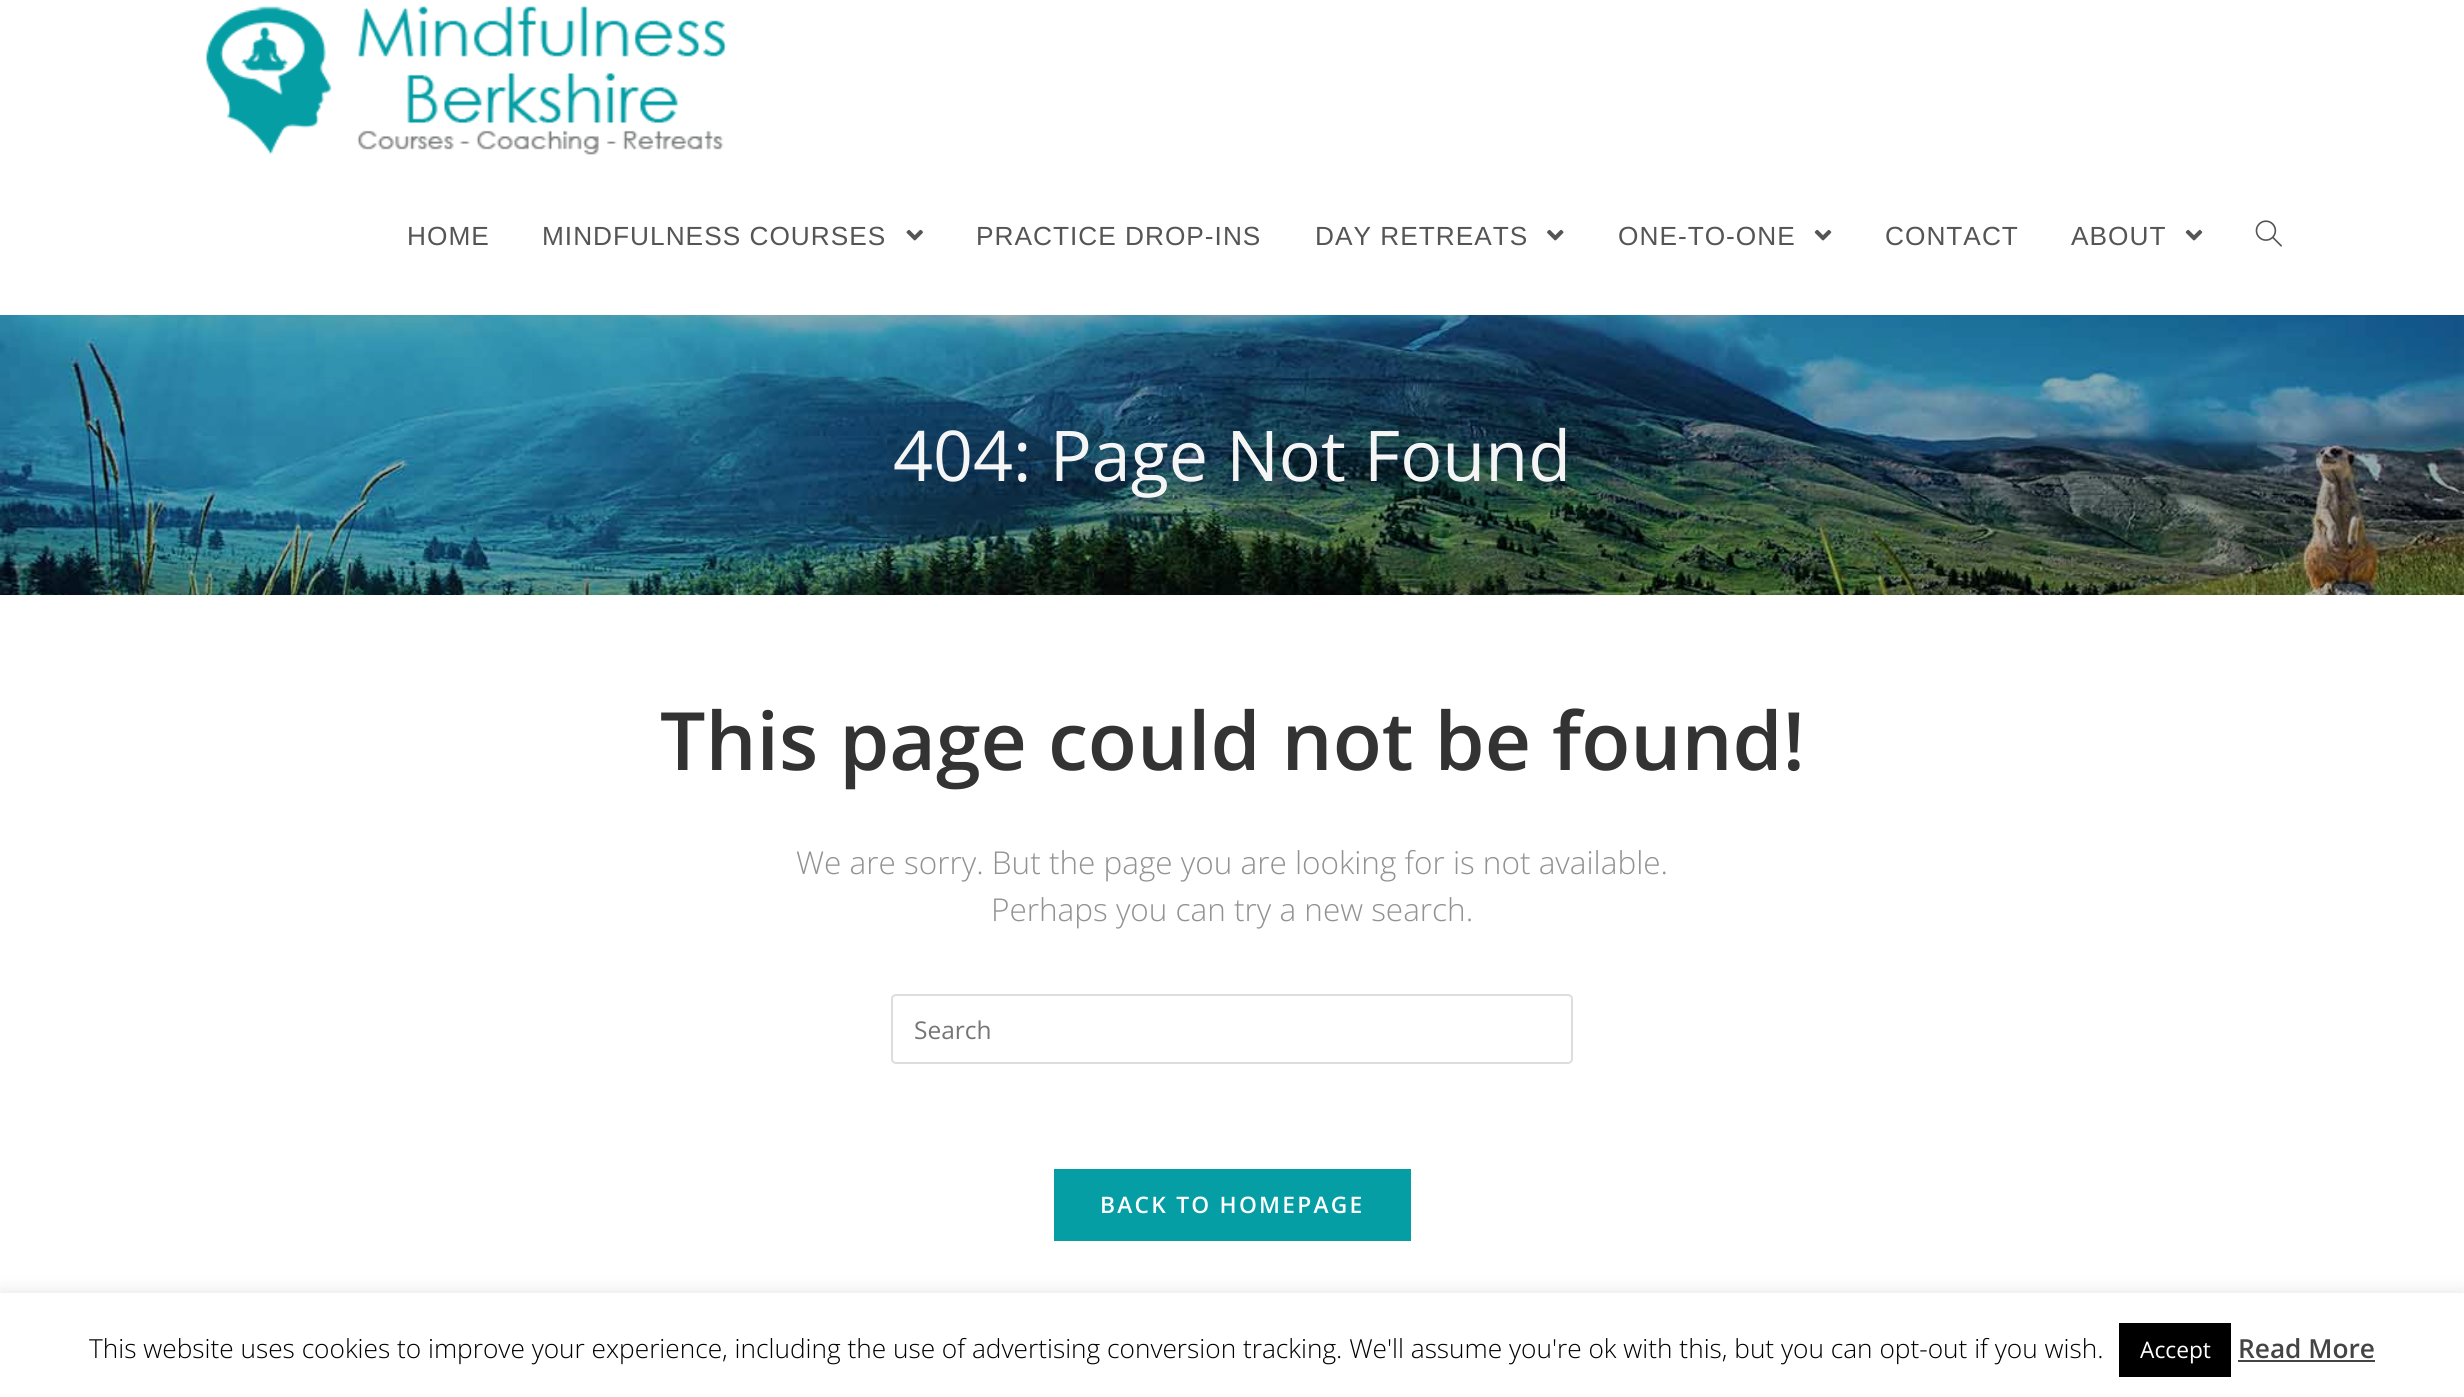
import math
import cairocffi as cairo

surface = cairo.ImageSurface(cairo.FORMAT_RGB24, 2464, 1397)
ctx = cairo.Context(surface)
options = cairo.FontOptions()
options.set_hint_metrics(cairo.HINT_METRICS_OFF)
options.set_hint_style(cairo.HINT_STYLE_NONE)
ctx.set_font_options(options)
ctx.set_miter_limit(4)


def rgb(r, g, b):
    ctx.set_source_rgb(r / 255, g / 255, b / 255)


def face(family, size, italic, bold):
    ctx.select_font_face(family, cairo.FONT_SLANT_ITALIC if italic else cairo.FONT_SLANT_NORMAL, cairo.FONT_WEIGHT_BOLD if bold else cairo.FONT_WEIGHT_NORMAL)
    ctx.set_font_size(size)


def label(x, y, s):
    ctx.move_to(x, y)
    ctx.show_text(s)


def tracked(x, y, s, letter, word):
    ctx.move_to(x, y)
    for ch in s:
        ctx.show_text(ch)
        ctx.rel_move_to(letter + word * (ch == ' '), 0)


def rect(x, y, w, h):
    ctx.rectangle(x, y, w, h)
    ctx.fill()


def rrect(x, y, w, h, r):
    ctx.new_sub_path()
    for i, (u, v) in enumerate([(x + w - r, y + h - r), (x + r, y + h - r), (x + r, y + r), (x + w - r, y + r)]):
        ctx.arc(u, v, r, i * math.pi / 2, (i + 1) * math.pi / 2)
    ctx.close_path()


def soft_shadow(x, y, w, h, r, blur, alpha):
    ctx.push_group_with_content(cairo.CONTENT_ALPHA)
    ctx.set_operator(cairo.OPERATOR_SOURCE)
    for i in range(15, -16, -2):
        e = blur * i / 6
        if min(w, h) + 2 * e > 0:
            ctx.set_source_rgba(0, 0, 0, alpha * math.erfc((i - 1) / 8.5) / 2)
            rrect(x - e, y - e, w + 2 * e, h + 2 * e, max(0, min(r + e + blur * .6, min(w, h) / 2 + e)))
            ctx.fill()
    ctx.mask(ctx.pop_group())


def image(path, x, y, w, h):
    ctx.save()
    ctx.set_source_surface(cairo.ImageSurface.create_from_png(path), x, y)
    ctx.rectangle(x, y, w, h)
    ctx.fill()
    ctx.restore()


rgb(255, 255, 255)
ctx.paint()
image('image0.png', 206, 6, 521, 149)
face('Liberation Sans', 26.25, 0, 0)
rgb(85, 85, 85)
tracked(407, 245, 'HOME', 1, 0)
tracked(542, 245, 'MINDFULNESS COURSES', 1, 0)
image('image1.png', 906, 229, 17, 12)
tracked(976, 245, 'PRACTICE DROP-INS', 1, 0)
tracked(1315, 245, 'DAY RETREATS', 1, 0)
image('image2.png', 1547, 229, 17, 12)
tracked(1618, 245, 'ONE-TO-ONE', 1, 0)
image('image3.png', 1814, 229, 18, 12)
tracked(1885, 245, 'CONTACT', 1, 0)
tracked(2071, 245, 'ABOUT', 1, 0)
image('image3.png', 2185, 229, 18, 12)
image('image4.png', 2255, 220, 27, 27)
image('image5.png', 0, 315, 2464, 280)
face('Open Sans', 70, 0, 0)
rgb(245, 245, 245)
label(893, 481, '404: Page Not Found')
face('Open Sans SemiBold', 80.5, 0, 0)
rgb(51, 51, 51)
label(660, 770, 'This page could not be found!')
face('Open Sans Light', 31.5, 0, 0)
rgb(146, 146, 146)
label(796, 874, 'We are sorry. But the page you are looking for is not available.')
label(991, 921, 'Perhaps you can try a new search.')
rrect(892, 995, 680, 68, 4)
rgb(221, 221, 221)
ctx.stroke()
face('Open Sans', 24.5, 0, 0)
rgb(117, 117, 117)
label(914, 1039, 'Search')
rgb(4, 158, 164)
rect(1054, 1169, 357, 72)
face('Open Sans SemiBold', 22.75, 0, 0)
rgb(255, 255, 255)
tracked(1100, 1213, 'BACK TO HOMEPAGE', 2.25, 0)
rgb(172, 171, 171)
soft_shadow(0, 1292, 2464, 105, 0, 9, 0.3)
rgb(255, 255, 255)
rect(0, 1293, 2464, 104)
face('Open Sans Light', 26.25, 0, 0)
rgb(0, 0, 0)
label(89, 1358, 'This website uses cookies to improve your experience, including the use of advertising conversion tracking. We\'ll assume you\'re ok with this, but you can opt-out if you wish.')
rect(2119, 1323, 112, 54)
face('Open Sans', 22.75, 0, 0)
rgb(255, 255, 255)
label(2140, 1358, 'Accept')
face('Open Sans SemiBold', 26.25, 0, 0)
rgb(68, 68, 68)
label(2238, 1358, 'Read More')
rect(2238, 1360, 137, 2)
surface.write_to_png('render.png')
